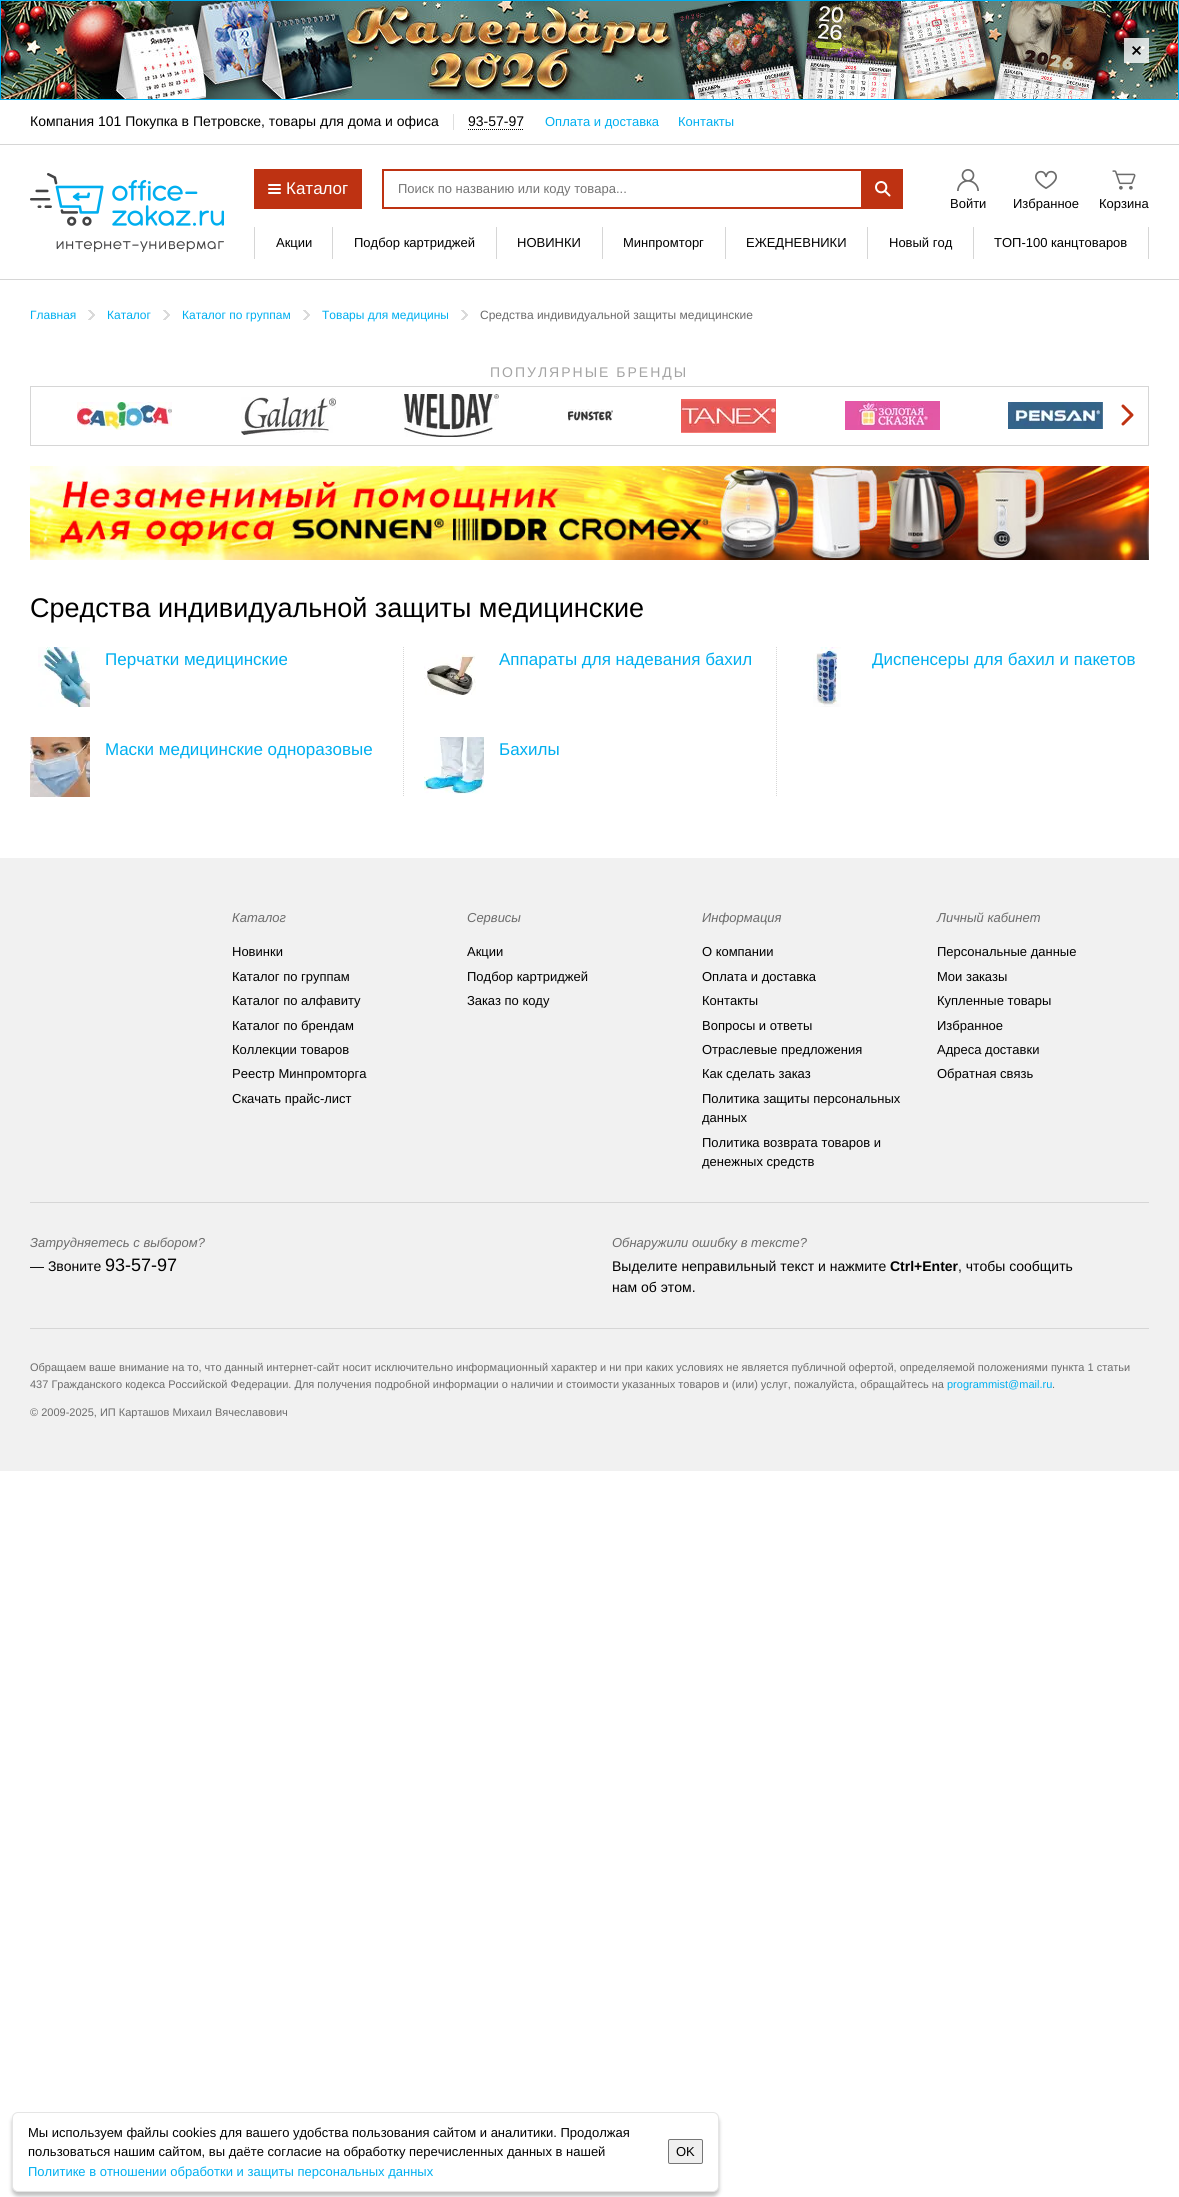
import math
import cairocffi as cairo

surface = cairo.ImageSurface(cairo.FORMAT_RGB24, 1179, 2197)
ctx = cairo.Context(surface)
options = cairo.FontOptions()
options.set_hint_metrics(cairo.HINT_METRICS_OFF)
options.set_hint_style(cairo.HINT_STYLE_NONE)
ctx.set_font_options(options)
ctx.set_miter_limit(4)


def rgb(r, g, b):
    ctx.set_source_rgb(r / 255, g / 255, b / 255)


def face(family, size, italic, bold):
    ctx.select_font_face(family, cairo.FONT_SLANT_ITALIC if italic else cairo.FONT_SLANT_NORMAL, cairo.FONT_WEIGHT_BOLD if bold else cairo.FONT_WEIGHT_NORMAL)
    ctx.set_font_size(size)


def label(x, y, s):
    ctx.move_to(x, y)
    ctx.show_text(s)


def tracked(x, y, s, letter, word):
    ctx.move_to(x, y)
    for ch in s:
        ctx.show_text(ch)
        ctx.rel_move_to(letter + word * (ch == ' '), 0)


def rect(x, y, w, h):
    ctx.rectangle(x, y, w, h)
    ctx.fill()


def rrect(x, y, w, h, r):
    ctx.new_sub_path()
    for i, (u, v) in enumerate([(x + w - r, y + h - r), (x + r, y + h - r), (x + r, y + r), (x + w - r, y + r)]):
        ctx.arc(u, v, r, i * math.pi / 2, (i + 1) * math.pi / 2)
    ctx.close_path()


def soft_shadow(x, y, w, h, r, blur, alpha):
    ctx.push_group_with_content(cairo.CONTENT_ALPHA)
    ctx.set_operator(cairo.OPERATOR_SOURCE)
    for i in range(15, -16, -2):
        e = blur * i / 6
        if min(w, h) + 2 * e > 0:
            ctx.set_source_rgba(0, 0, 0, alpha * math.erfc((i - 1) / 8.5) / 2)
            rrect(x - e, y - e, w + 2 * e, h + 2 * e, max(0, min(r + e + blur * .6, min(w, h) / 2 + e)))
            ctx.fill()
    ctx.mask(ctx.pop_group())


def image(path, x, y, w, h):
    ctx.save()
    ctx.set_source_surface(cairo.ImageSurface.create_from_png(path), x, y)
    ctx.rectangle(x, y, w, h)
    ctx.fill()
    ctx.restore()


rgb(255, 255, 255)
ctx.paint()
image('image0.png', 1, 1, 1177, 98)
ctx.rectangle(0.5, 0.5, 1178, 99)
rgb(0, 175, 240)
ctx.set_line_width(1)
ctx.stroke()
ctx.set_source_rgba(1, 1, 1, 0.8)
rect(1124, 38, 25, 25)
image('image1.png', 1132, 46, 9, 9)
rgb(214, 214, 214)
rect(0, 144, 1179, 1)
face('Liberation Sans', 14, 0, 0)
rgb(0, 0, 0)
label(30, 126, 'Компания 101 Покупка в Петровске, товары для дома и офиса')
rgb(222, 222, 222)
rect(453, 114, 1, 16)
rgb(0, 0, 0)
label(468, 126, '93-57-97')
ctx.new_path()
ctx.move_to(468, 129.5)
ctx.line_to(524, 129.5)
ctx.set_dash([1, 1])
ctx.stroke()
face('Liberation Sans', 13, 0, 0)
rgb(0, 175, 240)
label(545, 126, 'Оплата и доставка')
label(678, 126, 'Контакты')
rgb(214, 214, 214)
rect(0, 279, 1179, 1)
image('image2.png', 30, 173, 194, 79)
rgb(190, 50, 18)
rect(254, 169, 108, 40)
rgb(255, 255, 255)
rrect(268, 188, 13, 2, 1)
ctx.fill()
rrect(268, 184, 13, 2, 1)
ctx.fill()
rrect(268, 192, 13, 2, 1)
ctx.fill()
face('Liberation Sans', 17, 0, 0)
label(286, 194, 'Каталог')
ctx.rectangle(383, 170, 519, 38)
rgb(190, 50, 18)
ctx.set_line_width(2)
ctx.set_dash([])
ctx.stroke()
face('Liberation Sans', 13, 0, 0)
rgb(117, 117, 117)
label(398, 193, 'Поиск по названию или коду товара...')
rgb(190, 50, 18)
rect(861, 171, 40, 36)
image('image3.png', 875, 181, 16, 16)
image('image4.png', 957, 169, 22, 22)
rgb(0, 0, 0)
label(950, 208, 'Войти')
image('image5.png', 1035, 170, 22, 19)
label(1013, 208, 'Избранное')
image('image6.png', 1112, 170, 24, 20)
label(1099, 208, 'Корзина')
rgb(214, 214, 214)
rect(332, 227, 1, 32)
rect(254, 227, 1, 32)
rgb(0, 0, 0)
label(276, 247, 'Акции')
rgb(214, 214, 214)
rect(496, 227, 1, 32)
rgb(0, 0, 0)
label(354, 247, 'Подбор картриджей')
rgb(214, 214, 214)
rect(602, 227, 1, 32)
rgb(0, 0, 0)
label(517, 247, 'НОВИНКИ')
rgb(214, 214, 214)
rect(725, 227, 1, 32)
rgb(0, 0, 0)
label(623, 247, 'Минпромторг')
rgb(214, 214, 214)
rect(867, 227, 1, 32)
rgb(0, 0, 0)
label(746, 247, 'ЕЖЕДНЕВНИКИ')
rgb(214, 214, 214)
rect(973, 227, 1, 32)
rgb(0, 0, 0)
label(889, 247, 'Новый год')
rgb(214, 214, 214)
rect(1148, 227, 1, 32)
rgb(0, 0, 0)
label(994, 247, 'ТОП-100 канцтоваров')
face('Liberation Sans', 12, 0, 0)
rgb(0, 175, 240)
label(30, 319, 'Главная')
image('image7.png', 88, 310, 7, 10)
label(107, 319, 'Каталог')
image('image7.png', 163, 310, 7, 10)
label(182, 319, 'Каталог по группам')
image('image7.png', 303, 310, 7, 10)
label(322, 319, 'Товары для медицины')
image('image7.png', 461, 310, 7, 10)
rgb(108, 108, 108)
label(480, 319, 'Средства индивидуальной защиты медицинские')
face('Liberation Sans', 14, 0, 0)
rgb(164, 164, 164)
tracked(490, 377, 'ПОПУЛЯРНЫЕ БРЕНДЫ', 2, 0)
ctx.rectangle(30.5, 386.5, 1118, 59)
rgb(214, 214, 214)
ctx.set_line_width(1)
ctx.stroke()
image('image8.png', 77, 402, 95, 28)
image('image9.png', 241, 397, 95, 38)
image('image10.png', 404, 394, 95, 43)
image('image11.png', 568, 409, 45, 12)
image('image12.png', 681, 399, 95, 34)
image('image13.png', 845, 401, 95, 29)
image('image14.png', 1008, 402, 95, 27)
image('image15.png', 1121, 404, 13, 22)
image('image16.png', 30, 466, 1119, 94)
face('Liberation Sans', 27, 0, 0)
rgb(0, 0, 0)
label(30, 617, 'Средства индивидуальной защиты медицинские')
image('image17.png', 38, 647, 52, 60)
face('Liberation Sans', 17, 0, 0)
rgb(0, 175, 240)
label(105, 665, 'Перчатки медицинские')
image('image18.png', 30, 737, 60, 60)
label(105, 755, 'Маски медицинские одноразовые')
ctx.new_path()
ctx.move_to(403.5, 647)
ctx.line_to(403.5, 797)
rgb(214, 214, 214)
ctx.set_dash([1, 1])
ctx.stroke()
image('image19.png', 424, 654, 52, 41)
rgb(0, 175, 240)
label(499, 665, 'Аппараты для надевания бахил')
image('image20.png', 424, 737, 60, 57)
label(499, 755, 'Бахилы')
ctx.new_path()
ctx.move_to(776.5, 647)
ctx.line_to(776.5, 797)
rgb(214, 214, 214)
ctx.stroke()
image('image21.png', 813, 647, 28, 60)
rgb(0, 175, 240)
label(872, 665, 'Диспенсеры для бахил и пакетов')
rgb(241, 241, 241)
rect(0, 858, 1179, 613)
face('Liberation Sans', 13, 1, 0)
rgb(108, 108, 108)
label(232, 922, 'Каталог')
face('Liberation Sans', 13, 0, 0)
rgb(0, 0, 0)
label(232, 956, 'Новинки')
label(232, 981, 'Каталог по группам')
label(232, 1005, 'Каталог по алфавиту')
label(232, 1030, 'Каталог по брендам')
label(232, 1054, 'Коллекции товаров')
label(232, 1078, 'Реестр Минпромторга')
label(232, 1103, 'Скачать прайс-лист')
face('Liberation Sans', 13, 1, 0)
rgb(108, 108, 108)
label(467, 922, 'Сервисы')
face('Liberation Sans', 13, 0, 0)
rgb(0, 0, 0)
label(467, 956, 'Акции')
label(467, 981, 'Подбор картриджей')
label(467, 1005, 'Заказ по коду')
face('Liberation Sans', 13, 1, 0)
rgb(108, 108, 108)
label(702, 922, 'Информация')
face('Liberation Sans', 13, 0, 0)
rgb(0, 0, 0)
label(702, 956, 'О компании')
label(702, 981, 'Оплата и доставка')
label(702, 1005, 'Контакты')
label(702, 1030, 'Вопросы и ответы')
label(702, 1054, 'Отраслевые предложения')
label(702, 1078, 'Как сделать заказ')
label(702, 1103, 'Политика защиты персональных')
label(702, 1122, 'данных')
label(702, 1147, 'Политика возврата товаров и')
label(702, 1166, 'денежных средств')
face('Liberation Sans', 13, 1, 0)
rgb(108, 108, 108)
label(937, 922, 'Личный кабинет')
face('Liberation Sans', 13, 0, 0)
rgb(0, 0, 0)
label(937, 956, 'Персональные данные')
label(937, 981, 'Мои заказы')
label(937, 1005, 'Купленные товары')
label(937, 1030, 'Избранное')
label(937, 1054, 'Адреса доставки')
label(937, 1078, 'Обратная связь')
rgb(214, 214, 214)
rect(30, 1202, 1119, 1)
face('Liberation Sans', 13, 1, 0)
rgb(108, 108, 108)
label(30, 1247, 'Затрудняетесь с выбором?')
face('Liberation Sans', 14, 0, 0)
rgb(0, 0, 0)
label(30, 1271, '— Звоните')
face('Liberation Sans', 18, 0, 0)
label(105, 1271, '93-57-97')
face('Liberation Sans', 13, 1, 0)
rgb(108, 108, 108)
label(612, 1247, 'Обнаружили ошибку в тексте?')
face('Liberation Sans', 14, 0, 0)
rgb(0, 0, 0)
label(612, 1271, 'Выделите неправильный текст и нажмите')
face('Liberation Sans', 14, 0, 1)
label(890, 1271, 'Ctrl+Enter')
face('Liberation Sans', 14, 0, 0)
label(958, 1271, ', чтобы сообщить')
label(612, 1292, 'нам об этом.')
rgb(214, 214, 214)
rect(30, 1328, 1119, 1)
face('Liberation Sans', 11, 0, 0)
rgb(108, 108, 108)
label(30, 1371, 'Обращаем ваше внимание на то, что данный интернет-сайт носит исключительно информационный характер и ни при каких условиях не является публичной офертой, определяемой положениями пункта 1 статьи')
label(30, 1388, '437 Гражданского кодекса Российской Федерации. Для получения подробной информации о наличии и стоимости указанных товаров и (или) услуг, пожалуйста, обращайтесь на')
rgb(0, 175, 240)
label(947, 1388, 'programmist@mail.ru')
rgb(108, 108, 108)
label(1052, 1388, '.')
label(30, 1416, '© 2009-2025, ИП Карташов Михаил Вячеславович')
rgb(0, 0, 0)
soft_shadow(12, 2116, 707, 80, 6, 2, 0.25)
rgb(255, 255, 255)
rrect(12.5, 2112.5, 706, 79, 5.5)
ctx.fill_preserve()
rgb(229, 229, 229)
ctx.set_dash([])
ctx.stroke()
face('Liberation Sans', 13, 0, 0)
rgb(0, 0, 0)
label(28, 2137, 'Мы используем файлы cookies для вашего удобства пользования сайтом и аналитики. Продолжая')
label(28, 2156, 'пользоваться нашим сайтом, вы даёте согласие на обработку перечисленных данных в нашей')
rgb(0, 175, 240)
label(28, 2176, 'Политике в отношении обработки и защиты персональных данных')
rgb(239, 239, 239)
rrect(668.5, 2139.5, 34, 24, 1.5)
ctx.fill_preserve()
rgb(118, 118, 118)
ctx.stroke()
rgb(0, 0, 0)
label(676, 2156, 'OK')
surface.write_to_png('render.png')
